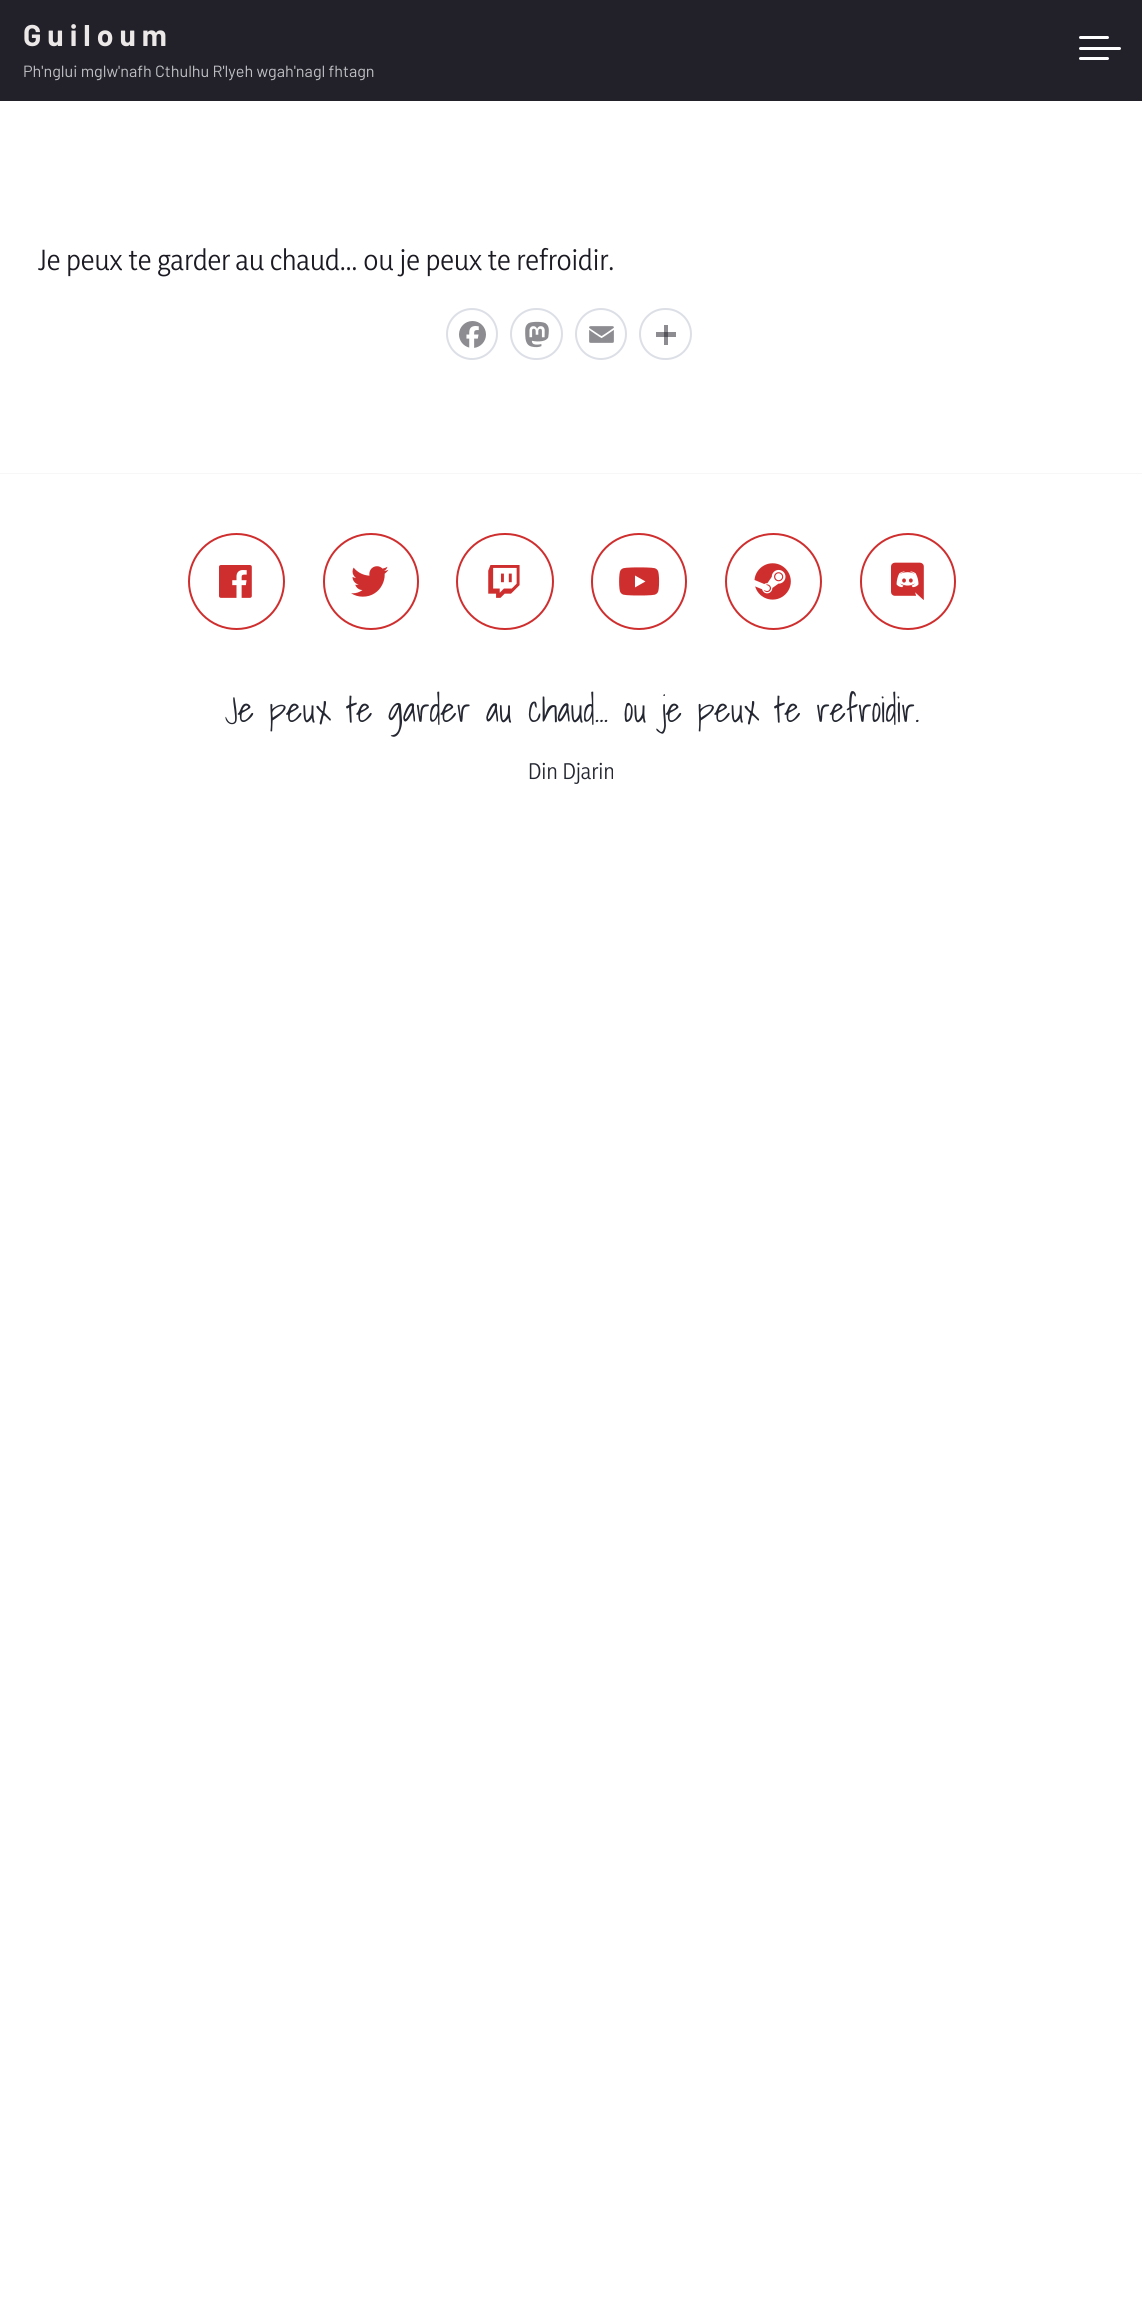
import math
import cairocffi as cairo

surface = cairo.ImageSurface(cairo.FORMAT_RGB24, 1142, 2308)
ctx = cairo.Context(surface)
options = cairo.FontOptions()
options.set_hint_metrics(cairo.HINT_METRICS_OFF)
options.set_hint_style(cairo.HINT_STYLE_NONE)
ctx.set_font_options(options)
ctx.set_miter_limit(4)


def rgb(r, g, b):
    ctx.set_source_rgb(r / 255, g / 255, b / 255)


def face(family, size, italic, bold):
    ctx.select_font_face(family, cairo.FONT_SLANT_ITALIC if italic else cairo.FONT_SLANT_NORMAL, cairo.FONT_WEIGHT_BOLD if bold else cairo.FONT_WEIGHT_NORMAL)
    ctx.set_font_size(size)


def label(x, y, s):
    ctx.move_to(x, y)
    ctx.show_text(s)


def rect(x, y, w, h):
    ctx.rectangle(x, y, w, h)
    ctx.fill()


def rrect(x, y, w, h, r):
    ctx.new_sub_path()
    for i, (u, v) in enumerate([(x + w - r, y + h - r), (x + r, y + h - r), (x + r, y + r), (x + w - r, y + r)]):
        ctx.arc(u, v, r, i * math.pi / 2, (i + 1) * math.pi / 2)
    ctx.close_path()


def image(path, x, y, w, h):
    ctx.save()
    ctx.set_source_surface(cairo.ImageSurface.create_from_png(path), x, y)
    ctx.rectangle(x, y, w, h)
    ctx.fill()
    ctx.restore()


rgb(255, 255, 255)
ctx.paint()
rgb(141, 141, 145)
rect(656, 332, 20, 5)
rgb(34, 33, 42)
rect(0, 0, 1142, 101)
face('Barlow', 30, 0, 1)
rgb(236, 232, 232)
label(23, 46, 'G u i l o u m')
face('Barlow', 16.2, 0, 0)
rgb(191, 192, 196)
label(23, 77, 'Ph\'nglui mglw\'nafh Cthulhu R\'lyeh wgah\'nagl fhtagn')
rgb(255, 255, 255)
rrect(1079, 47, 42, 3, 1.5)
ctx.fill()
rrect(1079, 36, 30, 3, 1.5)
ctx.fill()
rrect(1079, 57, 30, 3, 1.5)
ctx.fill()
face('Yaldevi', 26.4, 0, 0)
rgb(27, 26, 35)
label(38, 270, 'Je peux te garder au chaud… ou je peux te refroidir.')
ctx.new_path()
ctx.arc(472, 334, 25, 0, 2 * math.pi)
rgb(221, 223, 231)
ctx.stroke()
image('image0.png', 459, 321, 27, 27)
rrect(511, 309, 51, 50, 25)
ctx.stroke()
image('image1.png', 525, 321, 24, 27)
ctx.arc(601, 334, 25, 0, 2 * math.pi)
ctx.stroke()
image('image2.png', 589, 326, 25, 17)
rrect(640, 309, 51, 50, 25)
ctx.stroke()
rgb(141, 141, 145)
rect(664, 325, 4, 20)
rgb(84, 84, 90)
rect(664, 332, 4, 5)
rgb(247, 247, 247)
rect(0, 473, 1142, 1)
ctx.arc(236.5, 581.5, 47.5, 0, 2 * math.pi)
rgb(207, 46, 46)
ctx.stroke()
image('image3.png', 219, 565, 33, 33)
rrect(324, 534, 94, 95, 47)
ctx.stroke()
image('image4.png', 351, 566, 38, 31)
rrect(457, 534, 96, 95, 47.5)
ctx.stroke()
image('image5.png', 488, 565, 32, 33)
rrect(592, 534, 94, 95, 47)
ctx.stroke()
image('image6.png', 619, 567, 41, 29)
ctx.arc(773.5, 581.5, 47.5, 0, 2 * math.pi)
ctx.stroke()
image('image7.png', 754, 563, 37, 37)
rrect(861, 534, 94, 95, 47)
ctx.stroke()
image('image8.png', 891, 562, 33, 38)
face('Shadows Into Light Light', 34.7, 0, 0)
rgb(36, 39, 49)
label(225, 722, 'Je peux te garder au chaud… ou je peux te refroidir.')
face('Yaldevi', 20.5, 0, 0)
label(528, 779, 'Din Djarin')
surface.write_to_png('render.png')
